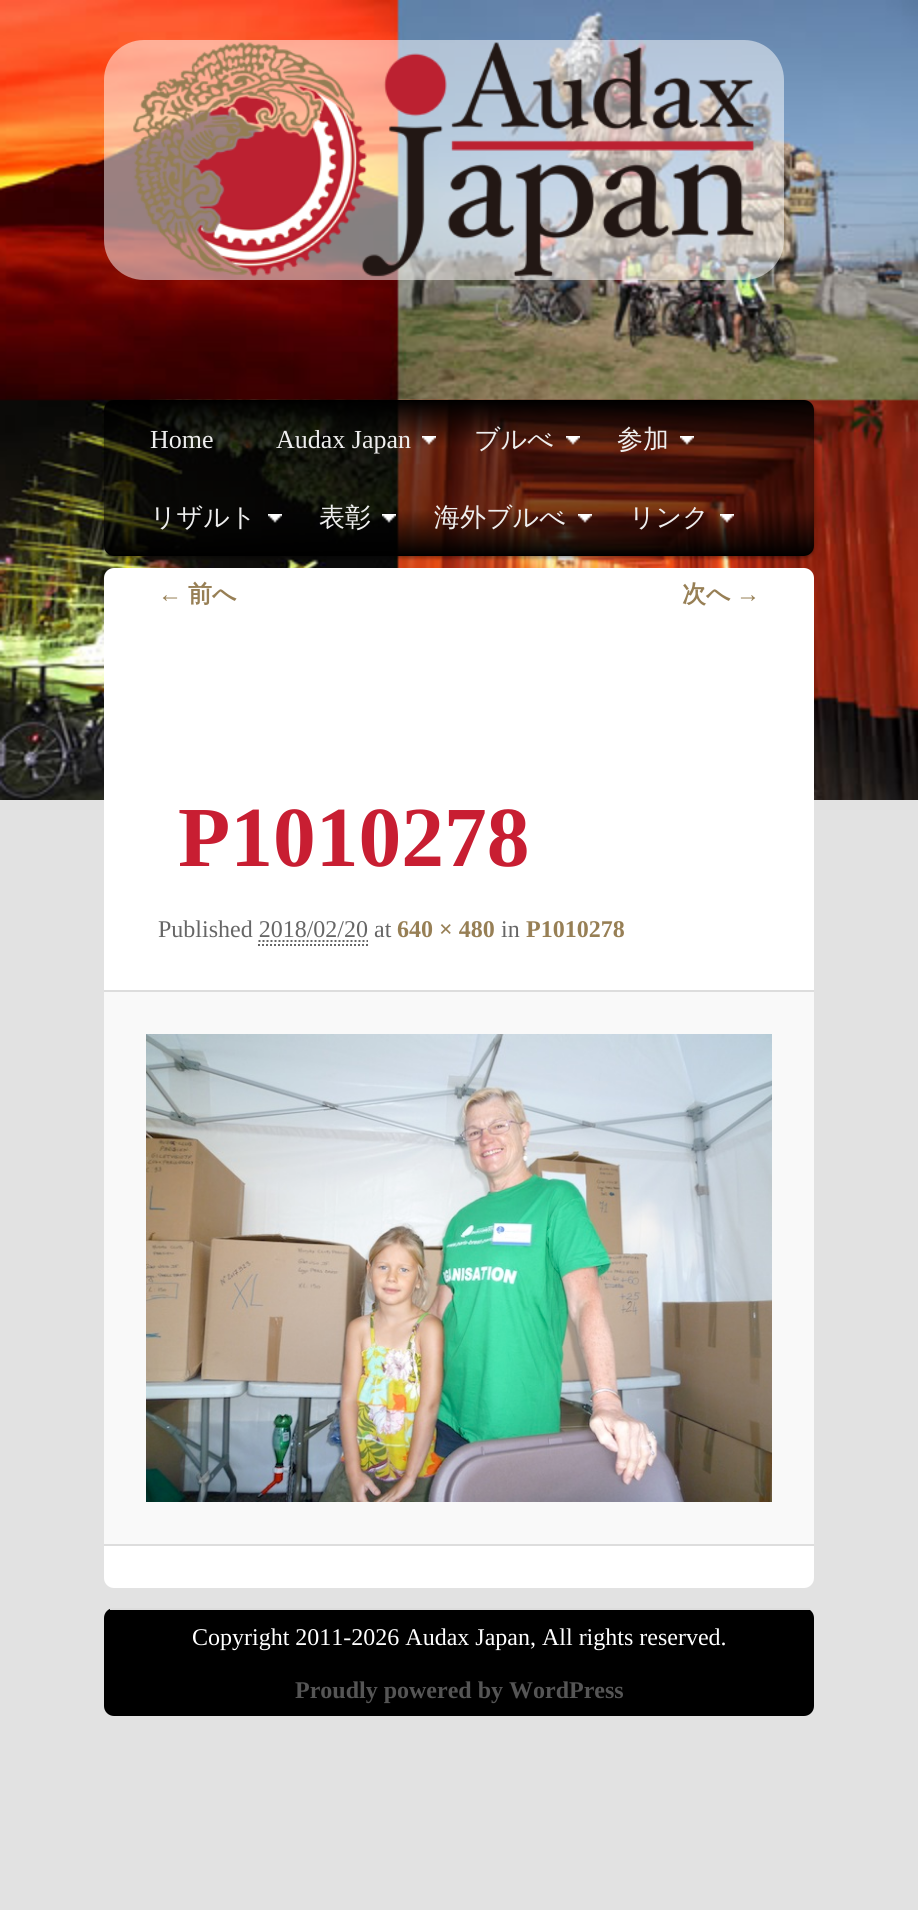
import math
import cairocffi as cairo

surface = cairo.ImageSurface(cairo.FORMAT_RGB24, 918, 1910)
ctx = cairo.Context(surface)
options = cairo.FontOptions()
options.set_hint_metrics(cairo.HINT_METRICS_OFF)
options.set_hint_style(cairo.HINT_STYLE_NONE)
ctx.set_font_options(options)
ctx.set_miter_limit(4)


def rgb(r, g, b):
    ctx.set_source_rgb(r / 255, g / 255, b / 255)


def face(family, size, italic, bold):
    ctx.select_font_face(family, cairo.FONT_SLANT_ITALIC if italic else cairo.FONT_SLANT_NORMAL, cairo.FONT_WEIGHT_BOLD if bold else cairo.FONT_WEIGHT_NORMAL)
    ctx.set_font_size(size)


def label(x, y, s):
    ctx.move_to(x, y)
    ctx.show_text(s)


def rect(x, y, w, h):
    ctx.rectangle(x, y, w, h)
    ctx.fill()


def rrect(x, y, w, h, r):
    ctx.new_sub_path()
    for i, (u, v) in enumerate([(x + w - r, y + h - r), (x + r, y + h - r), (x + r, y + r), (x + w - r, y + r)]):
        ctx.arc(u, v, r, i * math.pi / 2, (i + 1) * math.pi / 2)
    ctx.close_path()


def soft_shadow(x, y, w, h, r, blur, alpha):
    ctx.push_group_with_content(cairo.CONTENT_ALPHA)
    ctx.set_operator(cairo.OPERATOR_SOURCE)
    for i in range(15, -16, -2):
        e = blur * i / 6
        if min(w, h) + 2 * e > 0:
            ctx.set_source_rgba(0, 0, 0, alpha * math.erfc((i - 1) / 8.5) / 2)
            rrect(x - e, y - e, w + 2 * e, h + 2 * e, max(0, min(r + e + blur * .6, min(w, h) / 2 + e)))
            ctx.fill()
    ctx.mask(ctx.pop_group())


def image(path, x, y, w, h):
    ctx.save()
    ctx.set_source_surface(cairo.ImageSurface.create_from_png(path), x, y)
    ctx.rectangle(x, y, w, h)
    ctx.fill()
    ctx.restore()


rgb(226, 226, 226)
ctx.paint()
image('image0.png', 0, 0, 918, 800)
ctx.set_source_rgba(1, 1, 1, 0.5)
rrect(104, 40, 680, 240, 40)
ctx.fill()
image('image1.png', 133, 42, 621, 235)
ctx.save()
ctx.set_fill_rule(cairo.FILL_RULE_EVEN_ODD)
ctx.new_path()
ctx.move_to(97, 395)
ctx.line_to(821, 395)
ctx.line_to(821, 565)
ctx.line_to(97, 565)
ctx.close_path()
ctx.move_to(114, 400)
ctx.line_to(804, 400)
ctx.curve_to(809.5, 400, 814, 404.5, 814, 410)
ctx.line_to(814, 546)
ctx.curve_to(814, 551.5, 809.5, 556, 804, 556)
ctx.line_to(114, 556)
ctx.curve_to(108.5, 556, 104, 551.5, 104, 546)
ctx.line_to(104, 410)
ctx.curve_to(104, 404.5, 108.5, 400, 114, 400)
ctx.close_path()
ctx.clip()
rgb(0, 0, 0)
soft_shadow(104, 402, 710, 156, 10, 2, 0.4)
ctx.restore()
gradient = cairo.LinearGradient(459, 400, 459, 556)
gradient.add_color_stop_rgba(0, 0, 0, 0, 1)
gradient.add_color_stop_rgba(0.3, 0, 0, 0, 0.5)
gradient.add_color_stop_rgba(0.7, 0, 0, 0, 0.5)
gradient.add_color_stop_rgba(1, 0, 0, 0, 1)
ctx.set_source(gradient)
rrect(104, 400, 710, 156, 10)
ctx.fill()
face('Liberation Serif', 26, 0, 0)
rgb(238, 238, 238)
label(150, 448, 'Home')
image('image2.png', 422, 436, 14, 9)
label(276, 448, 'Audax Japan')
image('image3.png', 566, 436, 14, 9)
face('WenQuanYi Zen Hei Medium', 26, 0, 0)
label(474, 448, 'ブルべ')
image('image4.png', 680, 436, 14, 9)
label(617, 448, '参加')
image('image5.png', 268, 514, 14, 9)
label(150, 526, 'リザルト')
image('image6.png', 382, 514, 14, 9)
label(319, 526, '表彰')
image('image7.png', 578, 514, 14, 9)
label(434, 526, '海外ブルべ')
image('image8.png', 720, 514, 14, 9)
label(629, 526, 'リンク')
rgb(255, 255, 255)
rrect(104, 568, 710, 1020, 10)
ctx.fill()
face('Liberation Serif', 24, 0, 1)
rgb(151, 127, 85)
label(158, 602, '←')
face('WenQuanYi Zen Hei', 24, 0, 1)
label(188, 602, '前へ')
label(682, 602, '次へ')
face('Liberation Serif', 24, 0, 1)
label(736, 602, '→')
face('Liberation Serif', 85.5, 0, 1)
rgb(200, 30, 50)
label(178, 866, 'P1010278')
face('Liberation Serif', 24, 0, 0)
rgb(102, 102, 102)
label(158, 937, 'Published 2018/02/20 at')
face('Liberation Serif', 24, 0, 1)
rgb(151, 127, 85)
label(397, 937, '640 × 480')
face('Liberation Serif', 24, 0, 0)
rgb(102, 102, 102)
label(501, 937, 'in')
face('Liberation Serif', 24, 0, 1)
rgb(151, 127, 85)
label(526, 937, 'P1010278')
ctx.new_path()
ctx.move_to(258.5, 941)
ctx.line_to(368, 941)
rgb(102, 102, 102)
ctx.set_dash([2, 2])
ctx.stroke()
ctx.new_path()
ctx.move_to(258, 945)
ctx.line_to(368, 945)
ctx.stroke()
rgb(249, 249, 249)
rect(104, 992, 710, 552)
rgb(221, 221, 221)
rect(104, 990, 710, 2)
rect(104, 1544, 710, 2)
image('image9.png', 146, 1034, 626, 468)
rgb(0, 0, 0)
rrect(104, 1608, 710, 108, 10)
ctx.fill()
rgb(221, 221, 221)
rect(110, 1608, 700, 2)
face('Liberation Serif', 24, 0, 0)
rgb(255, 255, 255)
label(192, 1645, 'Copyright 2011-2026 Audax Japan, All rights reserved.')
face('Liberation Serif', 24, 0, 1)
rgb(85, 85, 85)
label(295, 1698, 'Proudly powered by WordPress')
surface.write_to_png('render.png')
